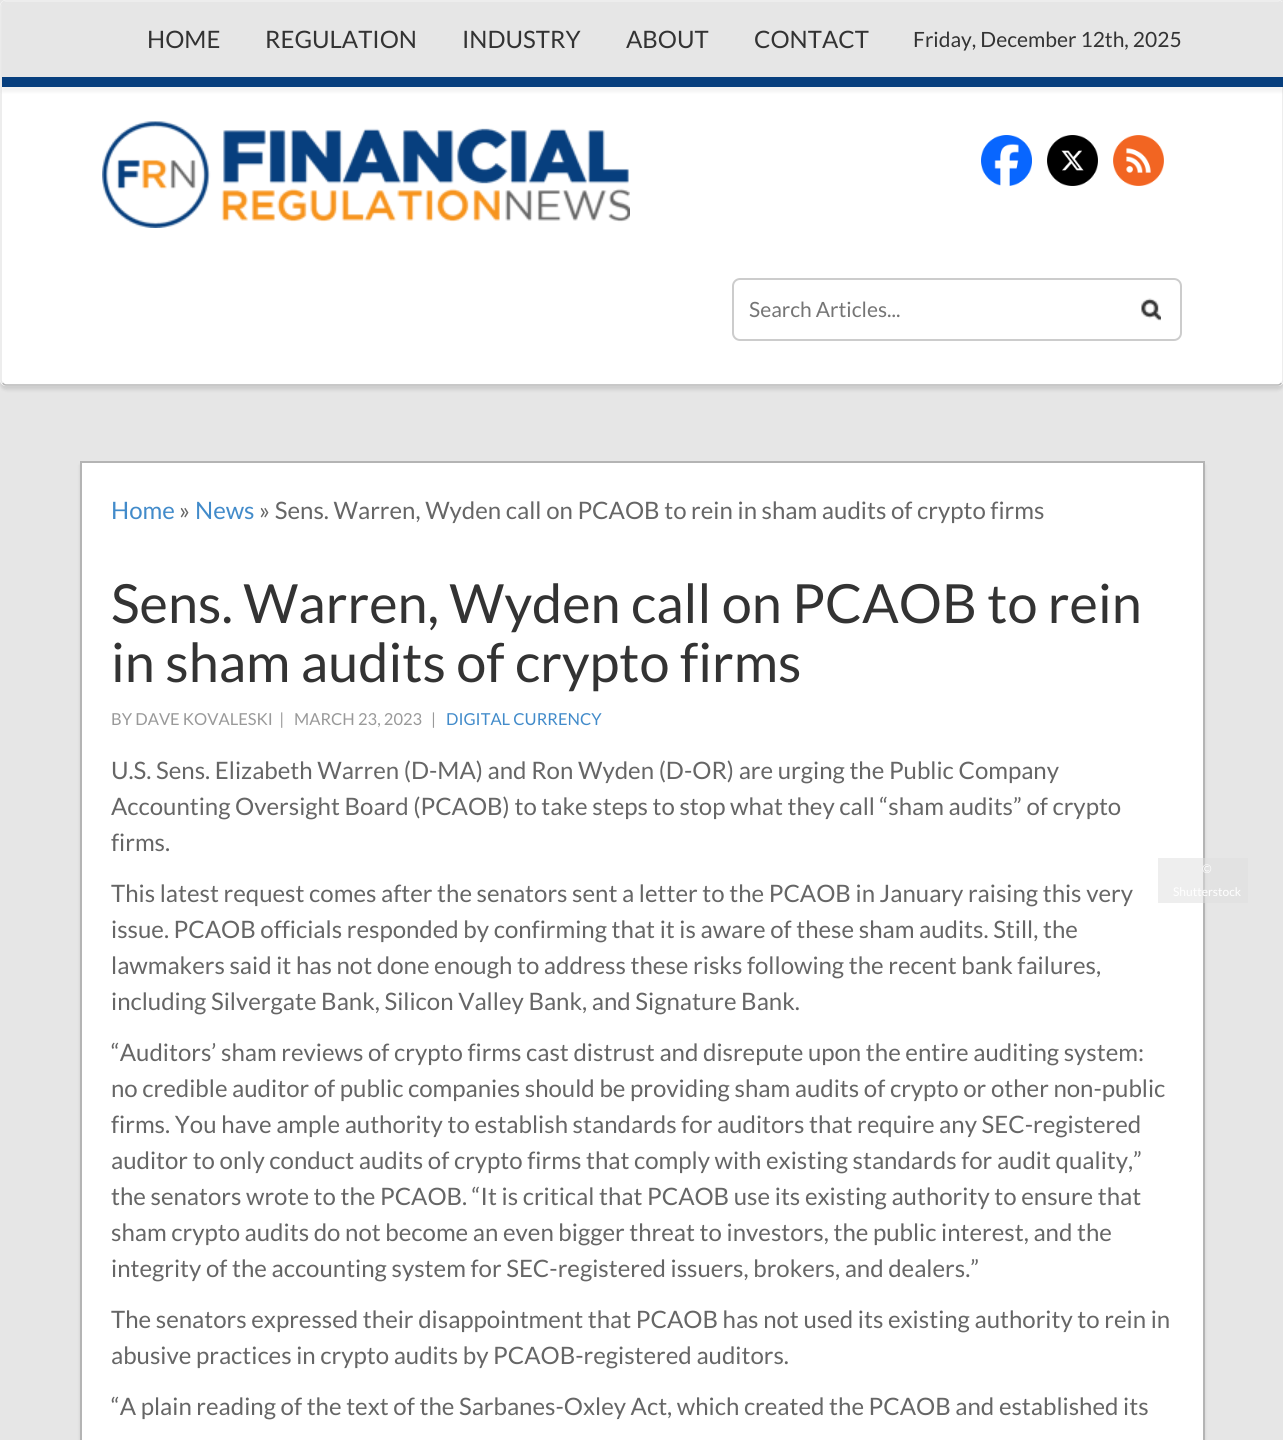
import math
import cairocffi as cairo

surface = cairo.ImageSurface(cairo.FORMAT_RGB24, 1283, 1440)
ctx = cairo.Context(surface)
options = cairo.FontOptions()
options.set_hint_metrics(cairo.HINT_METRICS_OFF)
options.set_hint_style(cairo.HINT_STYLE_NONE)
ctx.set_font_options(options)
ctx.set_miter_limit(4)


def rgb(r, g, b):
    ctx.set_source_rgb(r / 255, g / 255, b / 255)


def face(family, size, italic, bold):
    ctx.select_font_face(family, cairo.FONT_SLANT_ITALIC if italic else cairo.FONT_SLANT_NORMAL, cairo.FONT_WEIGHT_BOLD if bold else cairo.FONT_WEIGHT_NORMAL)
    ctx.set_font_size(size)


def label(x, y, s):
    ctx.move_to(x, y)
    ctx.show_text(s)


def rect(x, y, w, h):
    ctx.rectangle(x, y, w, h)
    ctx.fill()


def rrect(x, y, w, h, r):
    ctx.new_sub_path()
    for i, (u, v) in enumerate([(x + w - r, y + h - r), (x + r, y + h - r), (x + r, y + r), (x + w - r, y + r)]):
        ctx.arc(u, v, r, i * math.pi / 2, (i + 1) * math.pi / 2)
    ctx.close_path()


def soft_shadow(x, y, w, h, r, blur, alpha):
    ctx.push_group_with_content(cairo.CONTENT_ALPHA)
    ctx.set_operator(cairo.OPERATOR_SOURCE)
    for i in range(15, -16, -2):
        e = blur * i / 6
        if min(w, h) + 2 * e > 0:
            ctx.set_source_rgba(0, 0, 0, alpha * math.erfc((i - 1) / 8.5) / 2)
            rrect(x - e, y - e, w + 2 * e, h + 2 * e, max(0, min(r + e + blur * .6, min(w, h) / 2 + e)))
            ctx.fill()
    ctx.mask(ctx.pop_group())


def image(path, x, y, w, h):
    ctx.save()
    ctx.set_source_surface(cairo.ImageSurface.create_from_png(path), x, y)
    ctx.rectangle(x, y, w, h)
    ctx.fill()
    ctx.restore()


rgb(230, 230, 230)
ctx.paint()
rgb(0, 0, 0)
soft_shadow(0, 5, 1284, 385, 6, 1.5, 0.1)
rgb(255, 255, 255)
rrect(0, 0, 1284, 386, 6)
ctx.fill()
ctx.new_path()
ctx.move_to(1281.5, 383)
ctx.curve_to(1280.5, 384, 1279.5, 385, 1278, 385)
ctx.line_to(6, 385)
ctx.curve_to(4.5, 385, 3.5, 384, 2.5, 383)
rgb(180, 180, 180)
ctx.set_line_width(1.5)
ctx.stroke()
ctx.new_path()
ctx.move_to(2.5, 383)
ctx.curve_to(1.5, 382, 1, 381, 1, 379.5)
ctx.line_to(1, 6)
ctx.curve_to(1, 4.5, 1.5, 3.5, 2.5, 2.5)
ctx.curve_to(3.5, 1.5, 4.5, 1, 6, 1)
ctx.line_to(1278, 1)
ctx.curve_to(1279.5, 1, 1280.5, 1.5, 1281.5, 2.5)
ctx.curve_to(1282.5, 3.5, 1283, 4.5, 1283, 6)
ctx.line_to(1283, 379.5)
ctx.curve_to(1283, 381, 1282.5, 382, 1281.5, 383)
rgb(231, 231, 231)
ctx.stroke()
rgb(0, 0, 0)
soft_shadow(2, 6, 1281, 86, 0, 1.5, 0.05)
rgb(230, 230, 230)
rect(2, 2, 1281, 75)
rgb(7, 63, 126)
rect(2, 77, 1281, 10)
face('Lato', 24, 0, 0)
rgb(51, 51, 51)
label(147, 48, 'HOME')
label(265, 48, 'REGULATION')
label(462, 48, 'INDUSTRY')
label(626, 48, 'ABOUT')
label(754, 48, 'CONTACT')
face('Lato', 21, 0, 0)
label(913, 47, 'Friday, December 12th, 2025')
image('image0.png', 102, 121, 528, 107)
image('image1.png', 981, 135, 51, 51)
image('image2.png', 1047, 135, 51, 51)
image('image3.png', 1113, 135, 51, 51)
rrect(733, 279, 448, 61, 7)
rgb(204, 204, 204)
ctx.set_line_width(2)
ctx.stroke()
rgb(117, 117, 117)
label(749, 317, 'Search Articles...')
image('image4.png', 1141, 298, 20, 23)
rgb(0, 0, 0)
soft_shadow(80, 465, 1125, 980, 0, 1.5, 0.1)
rgb(255, 255, 255)
ctx.rectangle(81, 462, 1123, 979)
ctx.fill_preserve()
rgb(180, 180, 180)
ctx.stroke()
face('Lato', 24, 0, 0)
rgb(66, 139, 202)
label(111, 519, 'Home')
rgb(102, 102, 102)
label(179, 519, '»')
rgb(66, 139, 202)
label(195, 519, 'News')
rgb(102, 102, 102)
label(259, 519, '» Sens. Warren, Wyden call on PCAOB to rein in sham audits of crypto firms')
face('Lato', 54, 0, 0)
rgb(51, 51, 51)
label(111, 623, 'Sens. Warren, Wyden call on PCAOB to rein')
label(111, 682, 'in sham audits of crypto firms')
face('Lato', 16.5, 0, 0)
rgb(153, 153, 153)
label(111, 725, 'BY DAVE KOVALESKI  |')
label(294, 725, 'MARCH 23, 2023')
label(431, 725, '|')
rgb(66, 139, 202)
label(446, 725, 'DIGITAL CURRENCY')
face('Lato', 24, 0, 0)
rgb(102, 102, 102)
label(111, 779, 'U.S. Sens. Elizabeth Warren (D-MA) and Ron Wyden (D-OR) are urging the Public Company')
label(111, 815, 'Accounting Oversight Board (PCAOB) to take steps to stop what they call “sham audits” of crypto')
label(111, 851, 'firms.')
ctx.set_source_rgba(0.871, 0.871, 0.871, 0.5)
rect(1158, 858, 90, 45)
face('Lato', 12, 0, 0)
rgb(255, 255, 255)
label(1202, 873, '©')
label(1173, 896, 'Shutterstock')
face('Lato', 24, 0, 0)
rgb(102, 102, 102)
label(111, 902, 'This latest request comes after the senators sent a letter to the PCAOB in January raising this very')
label(111, 938, 'issue. PCAOB officials responded by confirming that it is aware of these sham audits. Still, the')
label(111, 974, 'lawmakers said it has not done enough to address these risks following the recent bank failures,')
label(111, 1010, 'including Silvergate Bank, Silicon Valley Bank, and Signature Bank.')
label(111, 1061, '“Auditors’ sham reviews of crypto firms cast distrust and disrepute upon the entire auditing system:')
label(111, 1097, 'no credible auditor of public companies should be providing sham audits of crypto or other non-public')
label(111, 1133, 'firms. You have ample authority to establish standards for auditors that require any SEC-registered')
label(111, 1169, 'auditor to only conduct audits of crypto firms that comply with existing standards for audit quality,”')
label(111, 1205, 'the senators wrote to the PCAOB. “It is critical that PCAOB use its existing authority to ensure that')
label(111, 1241, 'sham crypto audits do not become an even bigger threat to investors, the public interest, and the')
label(111, 1277, 'integrity of the accounting system for SEC-registered issuers, brokers, and dealers.”')
label(111, 1328, 'The senators expressed their disappointment that PCAOB has not used its existing authority to rein in')
label(111, 1364, 'abusive practices in crypto audits by PCAOB-registered auditors.')
label(111, 1415, '“A plain reading of the text of the Sarbanes-Oxley Act, which created the PCAOB and established its')
surface.write_to_png('render.png')
